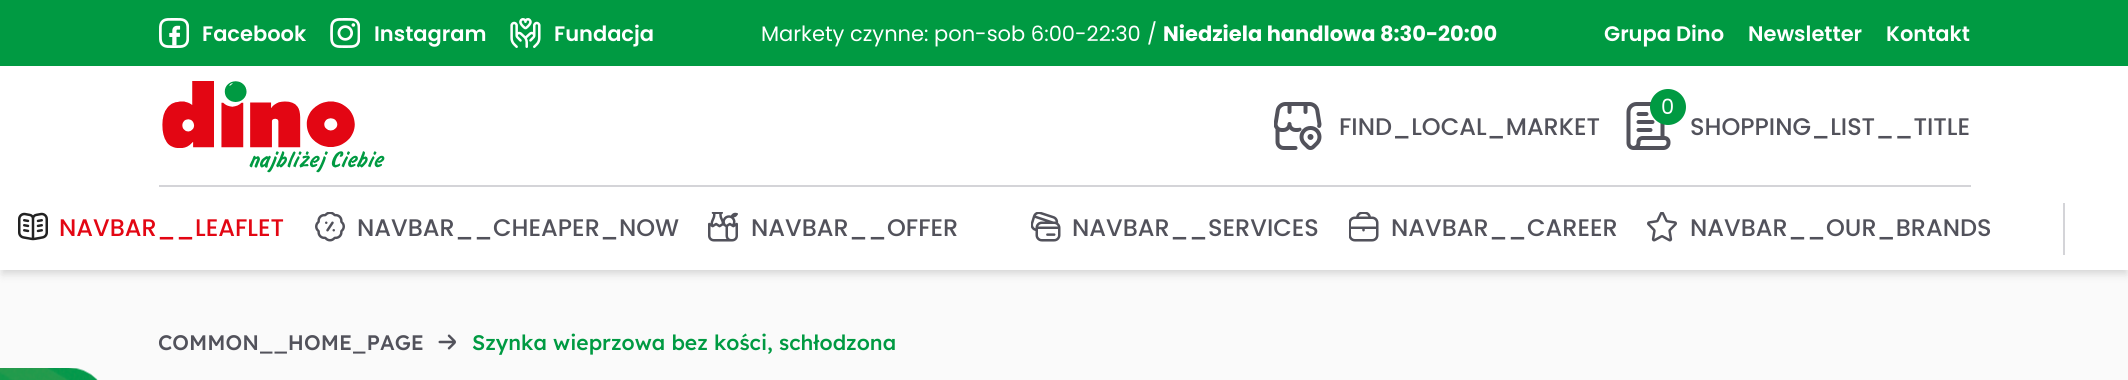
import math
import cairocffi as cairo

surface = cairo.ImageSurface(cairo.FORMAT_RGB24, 2128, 380)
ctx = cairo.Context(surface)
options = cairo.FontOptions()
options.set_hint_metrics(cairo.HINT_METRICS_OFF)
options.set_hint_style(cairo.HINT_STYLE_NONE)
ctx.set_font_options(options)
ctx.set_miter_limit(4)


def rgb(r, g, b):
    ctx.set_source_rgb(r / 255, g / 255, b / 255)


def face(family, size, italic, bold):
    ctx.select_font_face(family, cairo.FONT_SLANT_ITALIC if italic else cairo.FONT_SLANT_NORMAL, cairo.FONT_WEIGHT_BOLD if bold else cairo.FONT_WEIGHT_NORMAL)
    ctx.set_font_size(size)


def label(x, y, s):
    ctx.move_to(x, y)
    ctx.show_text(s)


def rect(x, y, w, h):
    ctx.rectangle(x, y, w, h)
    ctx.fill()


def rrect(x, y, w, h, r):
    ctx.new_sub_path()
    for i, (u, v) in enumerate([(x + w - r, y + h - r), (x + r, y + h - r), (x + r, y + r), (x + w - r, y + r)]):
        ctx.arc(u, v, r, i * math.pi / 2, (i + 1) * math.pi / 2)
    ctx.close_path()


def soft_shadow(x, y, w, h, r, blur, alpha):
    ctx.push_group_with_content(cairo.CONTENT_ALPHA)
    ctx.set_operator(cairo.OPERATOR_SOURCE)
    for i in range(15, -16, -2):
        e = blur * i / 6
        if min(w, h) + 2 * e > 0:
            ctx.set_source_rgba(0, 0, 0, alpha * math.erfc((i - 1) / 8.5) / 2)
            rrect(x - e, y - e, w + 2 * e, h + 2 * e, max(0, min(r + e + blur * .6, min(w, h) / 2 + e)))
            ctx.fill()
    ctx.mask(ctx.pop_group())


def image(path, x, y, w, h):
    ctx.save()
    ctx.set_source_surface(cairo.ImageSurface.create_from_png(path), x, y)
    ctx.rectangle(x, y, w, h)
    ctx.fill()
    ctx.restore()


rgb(250, 250, 250)
ctx.paint()
rgb(0, 154, 66)
rect(0, 0, 2128, 66)
image('image0.png', 159, 18, 30, 30)
face('Poppins SemiBold', 21, 0, 0)
rgb(255, 255, 255)
label(202, 41, 'Facebook')
image('image1.png', 330, 18, 30, 30)
label(374, 41, 'Instagram')
image('image2.png', 510, 18, 31, 30)
label(554, 41, 'Fundacja')
face('Poppins', 21, 0, 0)
label(761, 41, 'Markety czynne:')
label(934, 41, 'pon-sob 6:00-22:30')
label(1147, 41, '/')
face('Poppins', 21, 0, 1)
label(1163, 41, 'Niedziela handlowa 8:30-20:00')
face('Poppins SemiBold', 21, 0, 0)
label(1604, 41, 'Grupa Dino')
label(1748, 41, 'Newsletter')
label(1886, 41, 'Kontakt')
rgb(0, 0, 0)
soft_shadow(2, 71, 2125, 201, 0, 3, 0.06)
soft_shadow(2, 74, 2125, 201, 0, 4.5, 0.1)
rgb(255, 255, 255)
rect(0, 66, 2128, 204)
image('image3.png', 162, 81, 223, 92)
image('image4.png', 1274, 102, 48, 48)
face('Poppins Medium', 24, 0, 0)
rgb(82, 82, 91)
label(1339, 135, 'FIND_LOCAL_MARKET')
image('image5.png', 1626, 102, 45, 48)
rgb(0, 154, 66)
ctx.arc(1668, 107, 18, 0, 2 * math.pi)
ctx.fill()
face('Poppins', 21, 0, 0)
rgb(255, 255, 255)
label(1661, 114, '0')
face('Poppins Medium', 24, 0, 0)
rgb(82, 82, 91)
label(1690, 135, 'SHOPPING_LIST__TITLE')
rgb(212, 212, 216)
rect(159, 185, 1812, 2)
image('image6.png', 18, 212, 30, 29)
rgb(227, 6, 19)
label(59, 236, 'NAVBAR__LEAFLET')
image('image7.png', 315, 212, 30, 30)
rgb(82, 82, 91)
label(357, 236, 'NAVBAR__CHEAPER_NOW')
image('image8.png', 708, 212, 30, 30)
label(751, 236, 'NAVBAR__OFFER')
image('image9.png', 1031, 212, 30, 30)
label(1072, 236, 'NAVBAR__SERVICES')
image('image10.png', 1349, 212, 30, 30)
label(1391, 236, 'NAVBAR__CAREER')
image('image11.png', 1647, 212, 30, 30)
label(1690, 236, 'NAVBAR__OUR_BRANDS')
rgb(212, 212, 216)
rect(2063, 203, 2, 52)
face('Lexend Medium', 21, 0, 0)
rgb(82, 82, 91)
label(158, 350, 'COMMON__HOME_PAGE')
image('image12.png', 438, 334, 18, 16)
rgb(0, 154, 66)
label(472, 350, 'Szynka wieprzowa bez kości, schłodzona')
image('image13.png', 0, 368, 98, 12)
surface.write_to_png('render.png')
